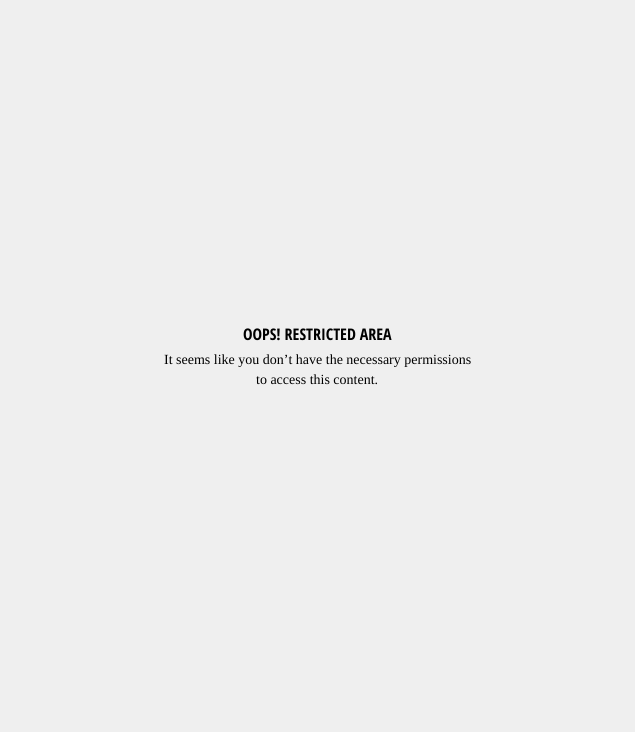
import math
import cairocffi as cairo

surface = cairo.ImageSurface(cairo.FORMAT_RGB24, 635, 732)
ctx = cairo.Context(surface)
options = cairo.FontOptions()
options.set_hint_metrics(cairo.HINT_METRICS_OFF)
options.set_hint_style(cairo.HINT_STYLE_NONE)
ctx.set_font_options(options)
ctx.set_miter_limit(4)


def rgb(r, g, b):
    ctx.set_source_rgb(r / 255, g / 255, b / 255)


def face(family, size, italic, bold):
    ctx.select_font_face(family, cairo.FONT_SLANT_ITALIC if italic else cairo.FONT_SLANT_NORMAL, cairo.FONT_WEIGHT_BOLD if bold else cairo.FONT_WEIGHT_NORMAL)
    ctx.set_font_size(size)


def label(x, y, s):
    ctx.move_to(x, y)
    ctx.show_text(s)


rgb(239, 239, 239)
ctx.paint()
face('Open Sans Condensed', 16, 0, 1)
rgb(0, 0, 0)
label(243, 340, 'OOPS! RESTRICTED AREA')
face('Liberation Serif', 14, 0, 0)
label(164, 364, 'It seems like you don’t have the necessary permissions')
label(256, 384, 'to access this content.')
surface.write_to_png('render.png')
